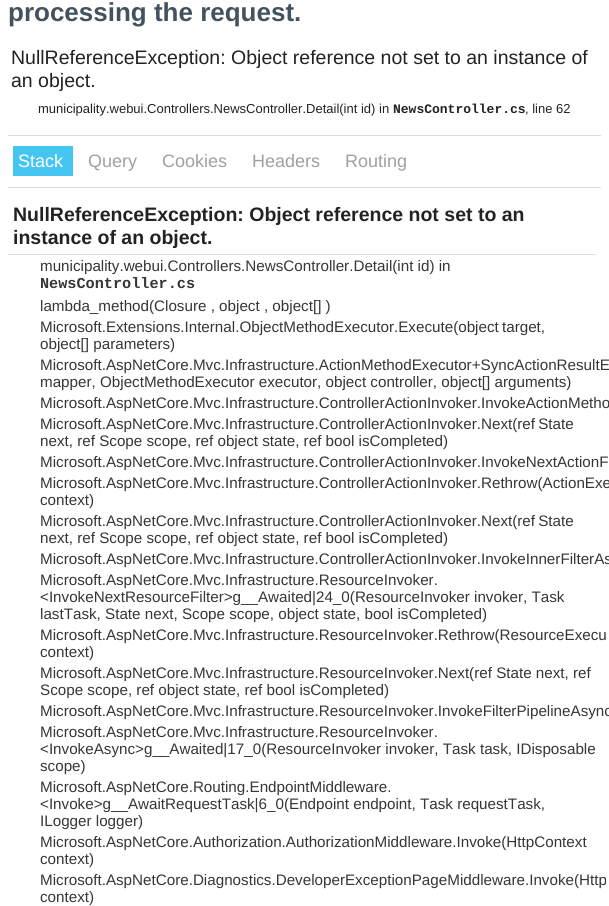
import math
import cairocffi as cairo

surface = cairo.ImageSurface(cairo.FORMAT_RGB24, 609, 906)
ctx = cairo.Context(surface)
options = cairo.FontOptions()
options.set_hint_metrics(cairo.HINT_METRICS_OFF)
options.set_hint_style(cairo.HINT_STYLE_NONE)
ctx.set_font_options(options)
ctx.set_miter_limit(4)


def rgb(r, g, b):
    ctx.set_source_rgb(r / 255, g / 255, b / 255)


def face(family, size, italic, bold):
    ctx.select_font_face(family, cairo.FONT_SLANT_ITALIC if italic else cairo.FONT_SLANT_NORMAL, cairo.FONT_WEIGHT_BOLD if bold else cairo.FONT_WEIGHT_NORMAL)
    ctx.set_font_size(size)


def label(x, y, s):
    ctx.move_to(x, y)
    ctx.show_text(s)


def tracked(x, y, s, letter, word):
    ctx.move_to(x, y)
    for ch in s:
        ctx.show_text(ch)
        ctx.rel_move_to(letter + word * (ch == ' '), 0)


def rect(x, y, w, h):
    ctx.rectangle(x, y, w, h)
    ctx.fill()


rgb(255, 255, 255)
ctx.paint()
face('Liberation Sans', 26, 0, 1)
rgb(68, 82, 94)
label(8, 21, 'processing the request.')
face('Liberation Sans', 19.5, 0, 0)
rgb(34, 34, 34)
label(11, 64, 'NullReferenceException: Object reference not set to an instance of')
label(11, 87, 'an object.')
face('Liberation Sans', 13, 0, 0)
label(38, 113, 'municipality.webui.Controllers.NewsController.Detail(int id) in')
face('Liberation Mono', 13, 0, 1)
label(393, 113, 'NewsController.cs')
face('Liberation Sans', 13, 0, 0)
label(525, 113, ', line 62')
rgb(221, 221, 221)
rect(8, 135, 593, 1)
rect(8, 187, 593, 1)
rgb(68, 197, 242)
rect(13, 146, 60, 30)
face('Liberation Sans', 18, 0, 0)
rgb(255, 255, 255)
label(18, 167, 'Stack')
rgb(160, 160, 160)
label(88, 167, 'Query')
label(162, 167, 'Cookies')
label(252, 167, 'Headers')
label(345, 167, 'Routing')
rgb(221, 221, 221)
rect(8, 254, 588, 1)
face('Liberation Sans', 19.5, 0, 1)
rgb(34, 34, 34)
label(13, 221, 'NullReferenceException: Object reference not set to an')
label(13, 244, 'instance of an object.')
face('Liberation Sans', 15.2, 0, 0)
rgb(54, 54, 54)
label(40, 271, 'municipality.webui.Controllers.NewsController.Detail(int id) in')
face('Liberation Mono', 15.2, 0, 1)
label(40, 288, 'NewsController.cs')
face('Liberation Sans', 15.2, 0, 0)
label(40, 311, 'lambda_method(Closure , object , object[] )')
tracked(40, 332, 'Microsoft.Extensions.Internal.ObjectMethodExecutor.Execute(object target,', 0, -1)
label(40, 349, 'object[] parameters)')
label(40, 370, 'Microsoft.AspNetCore.Mvc.Infrastructure.ActionMethodExecutor+SyncActionResultE')
label(40, 387, 'mapper, ObjectMethodExecutor executor, object controller, object[] arguments)')
label(40, 408, 'Microsoft.AspNetCore.Mvc.Infrastructure.ControllerActionInvoker.InvokeActionMetho')
tracked(40, 429, 'Microsoft.AspNetCore.Mvc.Infrastructure.ControllerActionInvoker.Next(ref State', 0, -1)
label(40, 446, 'next, ref Scope scope, ref object state, ref bool isCompleted)')
label(40, 467, 'Microsoft.AspNetCore.Mvc.Infrastructure.ControllerActionInvoker.InvokeNextActionF')
label(40, 488, 'Microsoft.AspNetCore.Mvc.Infrastructure.ControllerActionInvoker.Rethrow(ActionExe')
label(40, 505, 'context)')
tracked(40, 526, 'Microsoft.AspNetCore.Mvc.Infrastructure.ControllerActionInvoker.Next(ref State', 0, -1)
label(40, 543, 'next, ref Scope scope, ref object state, ref bool isCompleted)')
label(40, 564, 'Microsoft.AspNetCore.Mvc.Infrastructure.ControllerActionInvoker.InvokeInnerFilterAs')
label(40, 585, 'Microsoft.AspNetCore.Mvc.Infrastructure.ResourceInvoker.')
label(40, 602, '<InvokeNextResourceFilter>g__Awaited|24_0(ResourceInvoker invoker, Task')
label(40, 619, 'lastTask, State next, Scope scope, object state, bool isCompleted)')
label(40, 640, 'Microsoft.AspNetCore.Mvc.Infrastructure.ResourceInvoker.Rethrow(ResourceExecu')
label(40, 657, 'context)')
label(40, 678, 'Microsoft.AspNetCore.Mvc.Infrastructure.ResourceInvoker.Next(ref State next, ref')
label(40, 695, 'Scope scope, ref object state, ref bool isCompleted)')
label(40, 716, 'Microsoft.AspNetCore.Mvc.Infrastructure.ResourceInvoker.InvokeFilterPipelineAsync')
label(40, 737, 'Microsoft.AspNetCore.Mvc.Infrastructure.ResourceInvoker.')
label(40, 754, '<InvokeAsync>g__Awaited|17_0(ResourceInvoker invoker, Task task, IDisposable')
label(40, 771, 'scope)')
label(40, 792, 'Microsoft.AspNetCore.Routing.EndpointMiddleware.')
label(40, 809, '<Invoke>g__AwaitRequestTask|6_0(Endpoint endpoint, Task requestTask,')
label(40, 826, 'ILogger logger)')
label(40, 847, 'Microsoft.AspNetCore.Authorization.AuthorizationMiddleware.Invoke(HttpContext')
label(40, 864, 'context)')
label(40, 885, 'Microsoft.AspNetCore.Diagnostics.DeveloperExceptionPageMiddleware.Invoke(Http')
label(40, 902, 'context)')
surface.write_to_png('render.png')
